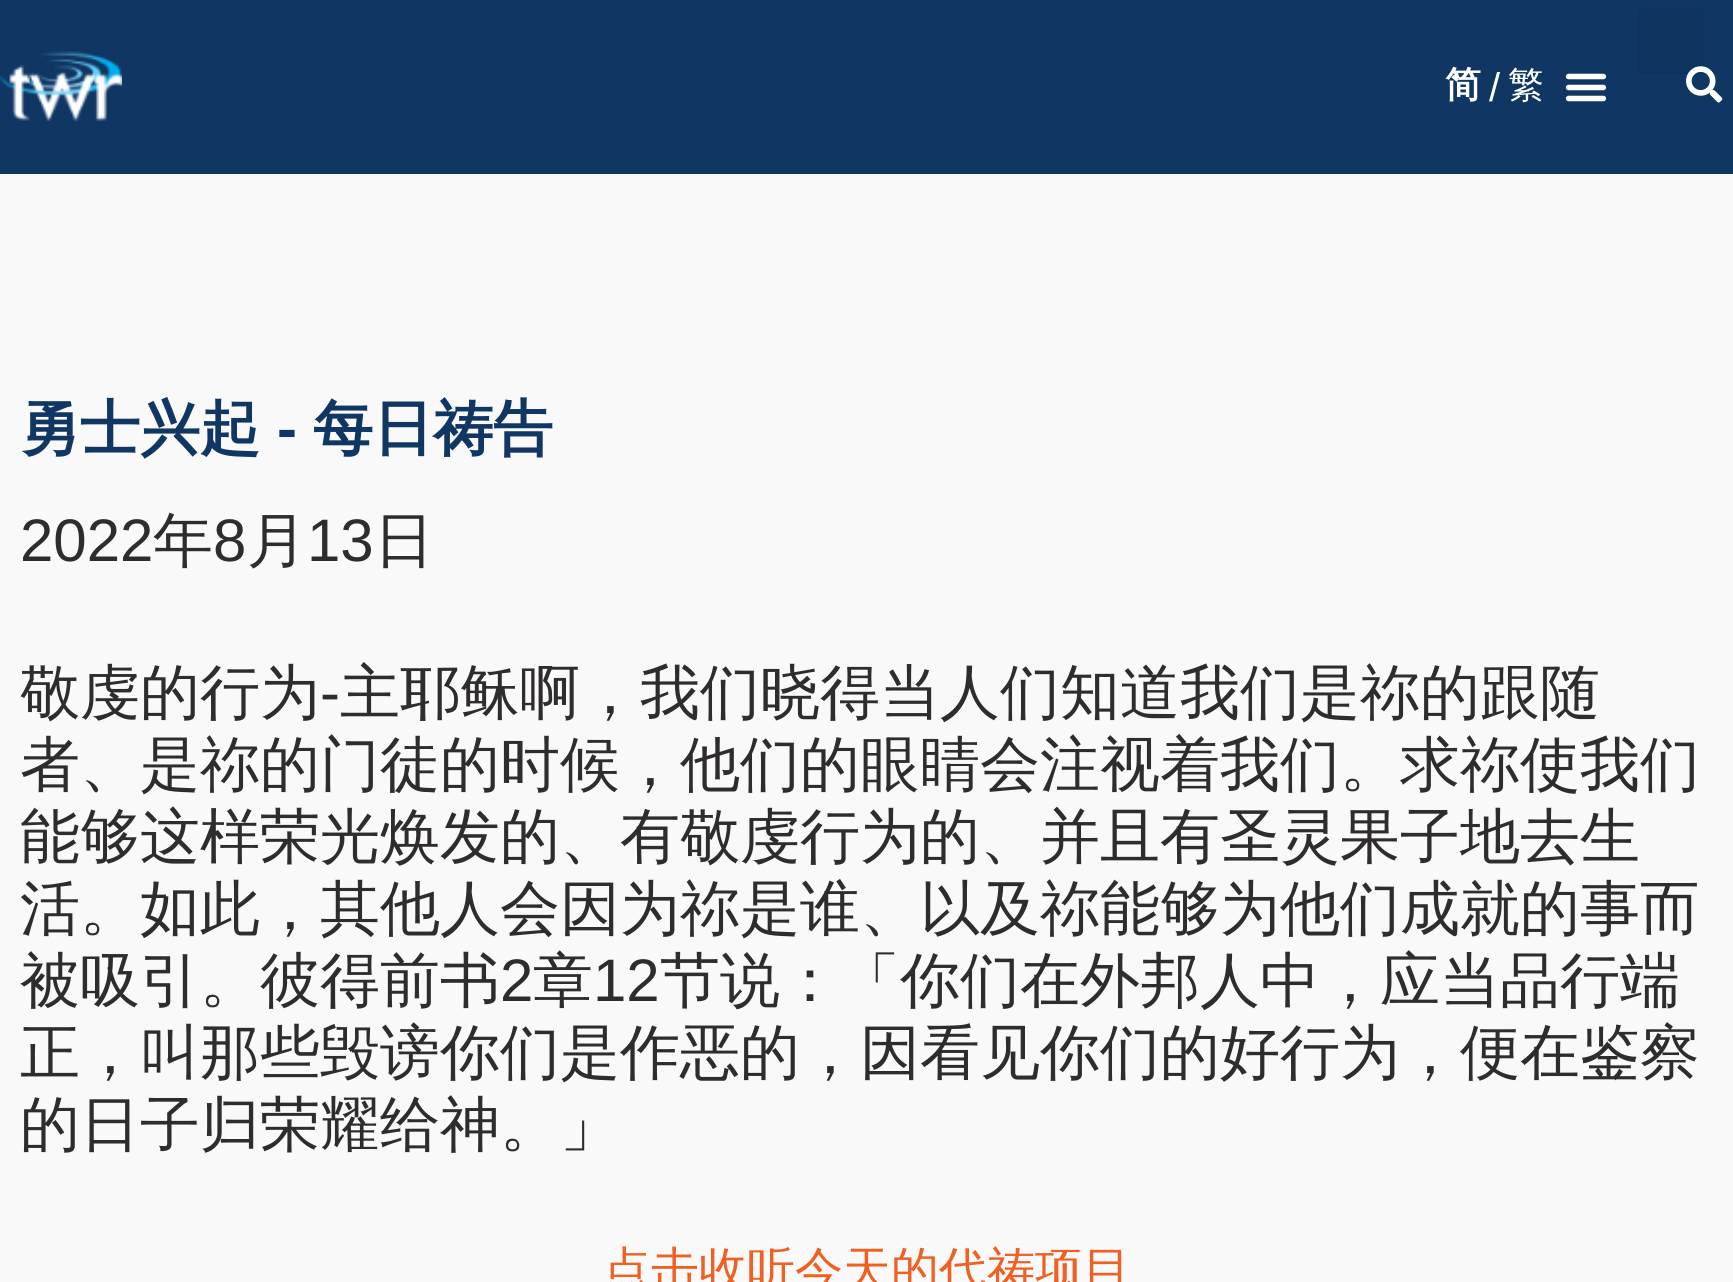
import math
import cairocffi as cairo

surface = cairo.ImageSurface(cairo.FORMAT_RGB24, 1733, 1282)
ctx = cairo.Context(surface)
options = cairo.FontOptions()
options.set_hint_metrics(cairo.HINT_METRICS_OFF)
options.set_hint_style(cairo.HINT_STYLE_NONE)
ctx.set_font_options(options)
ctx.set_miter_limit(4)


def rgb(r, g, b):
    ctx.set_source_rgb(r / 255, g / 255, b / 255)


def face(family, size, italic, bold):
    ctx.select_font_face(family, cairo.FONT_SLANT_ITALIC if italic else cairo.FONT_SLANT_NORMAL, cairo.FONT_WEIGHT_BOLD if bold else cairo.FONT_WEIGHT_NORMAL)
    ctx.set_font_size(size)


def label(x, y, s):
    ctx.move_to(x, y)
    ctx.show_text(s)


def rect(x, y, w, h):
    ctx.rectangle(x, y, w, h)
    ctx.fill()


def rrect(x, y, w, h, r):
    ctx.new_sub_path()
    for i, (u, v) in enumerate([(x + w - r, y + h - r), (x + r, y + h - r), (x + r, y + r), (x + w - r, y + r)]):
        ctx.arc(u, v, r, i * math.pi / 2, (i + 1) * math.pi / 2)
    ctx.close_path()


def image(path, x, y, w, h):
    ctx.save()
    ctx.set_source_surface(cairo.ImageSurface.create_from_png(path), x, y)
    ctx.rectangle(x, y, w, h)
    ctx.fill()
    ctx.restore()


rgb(249, 249, 249)
ctx.paint()
rgb(16, 54, 100)
rect(0, 0, 1733, 174)
image('image0.png', 0, 51, 122, 71)
face('WenQuanYi Zen Hei', 36, 0, 1)
rgb(255, 255, 255)
label(1445, 97, '简')
face('Liberation Sans', 40, 0, 0)
label(1489, 101, '/')
face('WenQuanYi Zen Hei Medium', 36, 0, 0)
label(1508, 97, '繁')
image('image1.png', 1565, 73, 42, 29)
rgb(15, 51, 95)
rrect(1638, 8, 66, 66, 6)
ctx.fill()
image('image2.png', 1686, 66, 37, 37)
face('WenQuanYi Zen Hei', 60, 0, 1)
rgb(16, 54, 100)
label(20, 449, '勇士兴起')
face('Liberation Sans', 60, 0, 1)
label(277, 449, '-')
face('WenQuanYi Zen Hei', 60, 0, 1)
label(313, 449, '每日祷告')
face('Liberation Sans', 60, 0, 0)
rgb(47, 44, 44)
label(20, 561, '2022')
face('WenQuanYi Zen Hei Medium', 60, 0, 0)
label(153, 561, '年')
face('Liberation Sans', 60, 0, 0)
label(213, 561, '8')
face('WenQuanYi Zen Hei Medium', 60, 0, 0)
label(247, 561, '月')
face('Liberation Sans', 60, 0, 0)
label(307, 561, '13')
face('WenQuanYi Zen Hei Medium', 60, 0, 0)
label(374, 561, '日')
label(20, 713, '敬虔的行为')
face('Liberation Sans', 60, 0, 0)
label(320, 713, '-')
face('WenQuanYi Zen Hei Medium', 60, 0, 0)
label(340, 713, '主耶稣啊，我们晓得当人们知道我们是祢的跟随')
label(20, 785, '者、是祢的门徒的时候，他们的眼睛会注视着我们。求祢使我们')
label(20, 857, '能够这样荣光焕发的、有敬虔行为的、并且有圣灵果子地去生')
label(20, 929, '活。如此，其他人会因为祢是谁、以及祢能够为他们成就的事而')
label(20, 1001, '被吸引。彼得前书')
face('Liberation Sans', 60, 0, 0)
label(500, 1001, '2')
face('WenQuanYi Zen Hei Medium', 60, 0, 0)
label(533, 1001, '章')
face('Liberation Sans', 60, 0, 0)
label(593, 1001, '12')
face('WenQuanYi Zen Hei Medium', 60, 0, 0)
label(660, 1001, '节说：「你们在外邦人中，应当品行端')
label(20, 1073, '正，叫那些毁谤你们是作恶的，因看见你们的好行为，便在鉴察')
label(20, 1145, '的日子归荣耀给神。」')
face('WenQuanYi Zen Hei Medium', 48, 0, 0)
rgb(239, 96, 35)
label(603, 1286, '点击收听今天的代祷项目')
surface.write_to_png('render.png')
